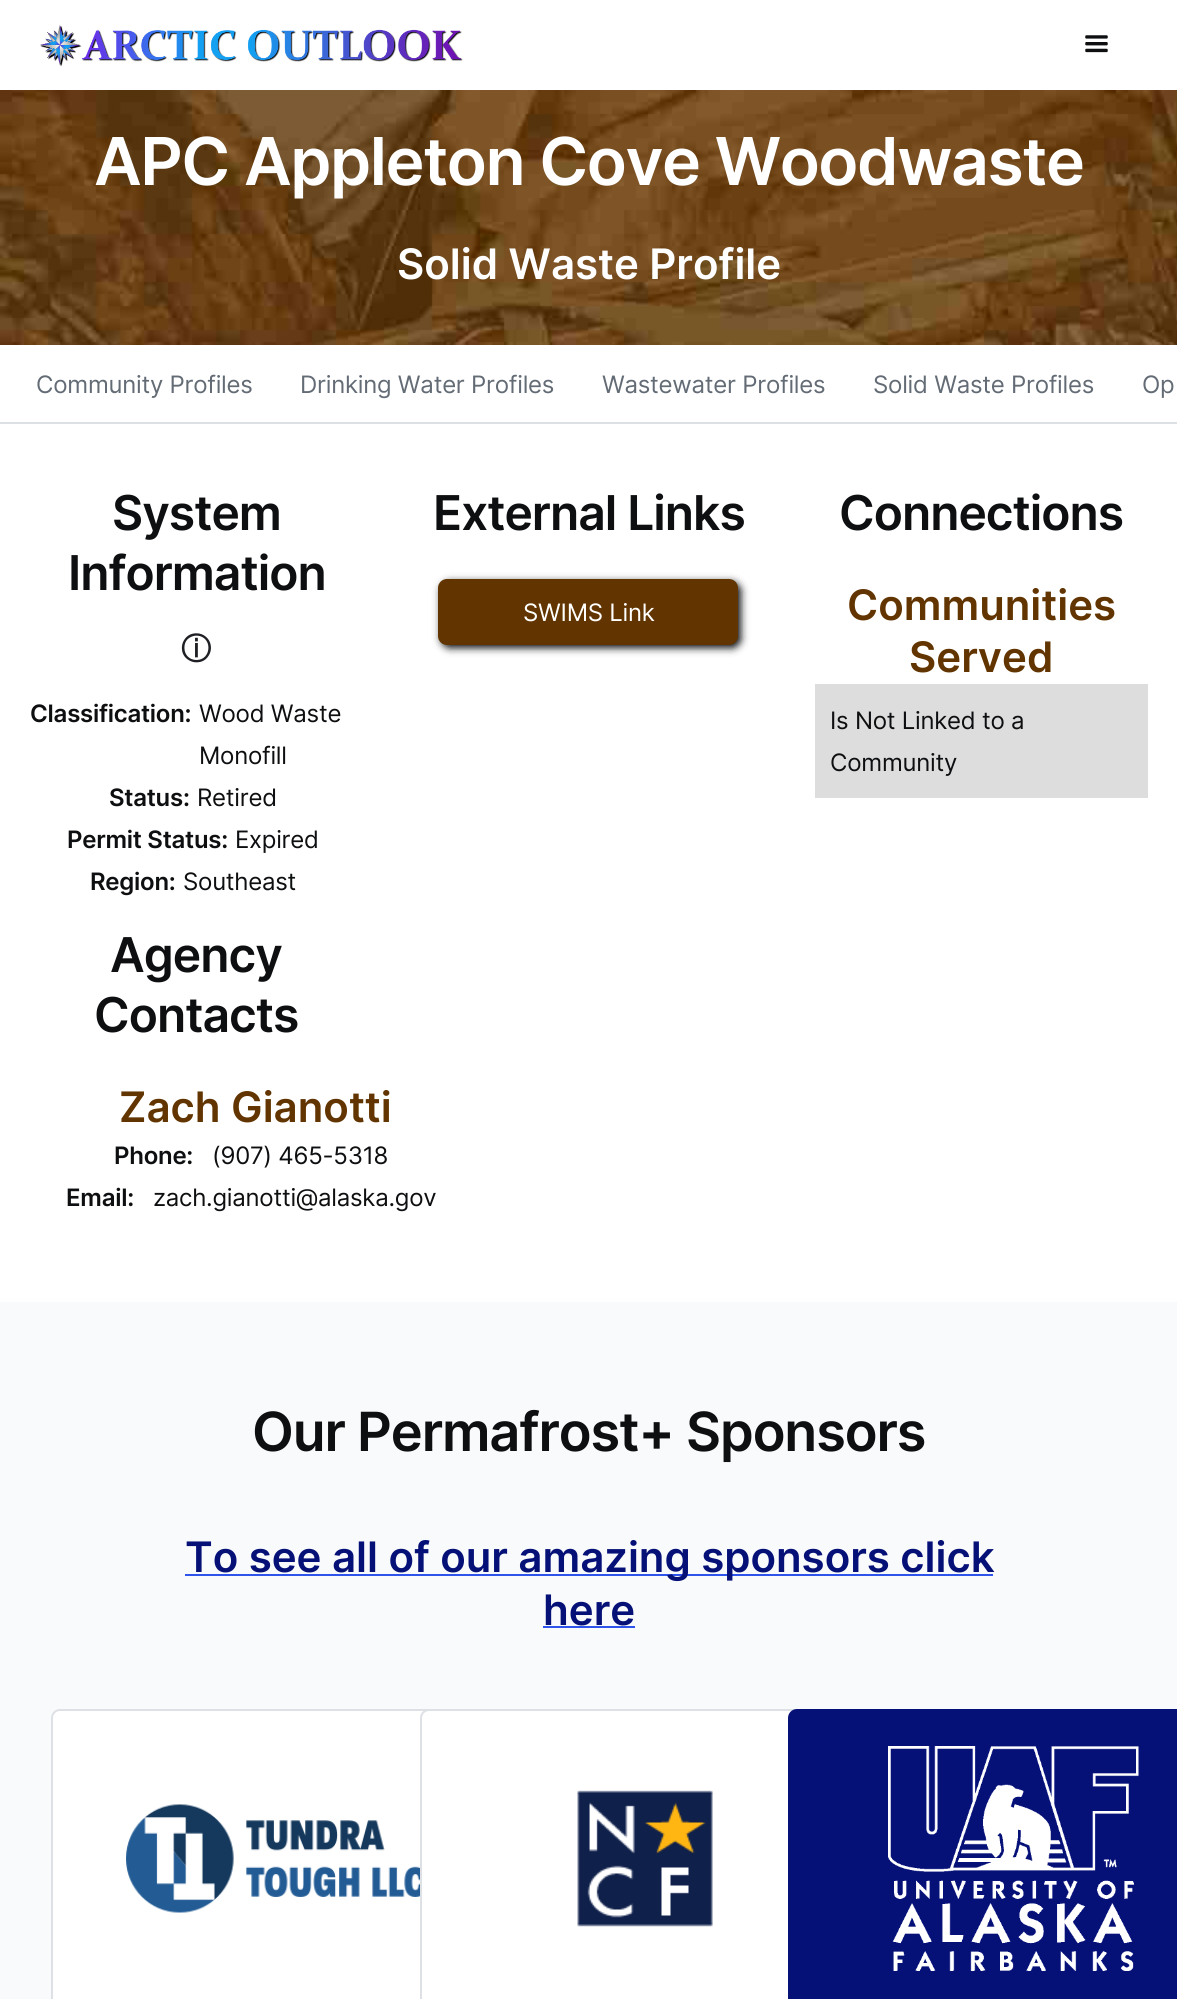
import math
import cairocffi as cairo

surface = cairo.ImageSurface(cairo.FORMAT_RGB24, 1177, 1999)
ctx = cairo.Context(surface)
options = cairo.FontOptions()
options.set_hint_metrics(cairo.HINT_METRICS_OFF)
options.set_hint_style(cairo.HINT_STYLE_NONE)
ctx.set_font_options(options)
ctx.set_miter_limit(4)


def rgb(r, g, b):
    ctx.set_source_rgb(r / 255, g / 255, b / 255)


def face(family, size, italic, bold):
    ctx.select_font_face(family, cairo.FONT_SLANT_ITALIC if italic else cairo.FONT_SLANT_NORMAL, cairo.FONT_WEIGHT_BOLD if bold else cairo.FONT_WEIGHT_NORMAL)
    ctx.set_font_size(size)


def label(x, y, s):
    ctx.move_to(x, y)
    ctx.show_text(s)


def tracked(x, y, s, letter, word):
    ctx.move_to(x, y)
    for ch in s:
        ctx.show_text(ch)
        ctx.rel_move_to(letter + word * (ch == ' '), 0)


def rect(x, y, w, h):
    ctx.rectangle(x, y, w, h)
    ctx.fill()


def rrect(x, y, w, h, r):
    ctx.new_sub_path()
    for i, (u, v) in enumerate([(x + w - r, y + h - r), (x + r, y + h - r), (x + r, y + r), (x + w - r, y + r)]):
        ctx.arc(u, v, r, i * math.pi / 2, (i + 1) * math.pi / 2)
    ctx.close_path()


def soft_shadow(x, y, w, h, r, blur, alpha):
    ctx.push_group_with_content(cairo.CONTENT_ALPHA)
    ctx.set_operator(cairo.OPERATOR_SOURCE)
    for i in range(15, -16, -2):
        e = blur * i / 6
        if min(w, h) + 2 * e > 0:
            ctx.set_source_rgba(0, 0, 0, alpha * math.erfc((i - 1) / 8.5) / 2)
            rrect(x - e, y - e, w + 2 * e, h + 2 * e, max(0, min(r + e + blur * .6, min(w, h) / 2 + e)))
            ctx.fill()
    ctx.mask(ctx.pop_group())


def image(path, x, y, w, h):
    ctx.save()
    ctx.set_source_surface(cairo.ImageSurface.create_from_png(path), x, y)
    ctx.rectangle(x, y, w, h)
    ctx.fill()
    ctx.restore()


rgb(255, 255, 255)
ctx.paint()
image('image0.png', 40, 25, 423, 42)
image('image1.png', 1085, 35, 23, 18)
image('image2.png', 0, 90, 1177, 255)
face('Inter SemiBold', 66, 0, 0)
rgb(255, 255, 255)
tracked(94, 185, 'APC Appleton Cove Woodwaste', -1.45, 0)
face('Inter SemiBold', 42, 0, 0)
label(397, 279, 'Solid Waste Profile')
rgb(221, 225, 230)
rect(0, 422, 1177, 2)
face('Inter', 24, 0, 0)
rgb(99, 107, 117)
tracked(36, 393, 'Community Profiles', -0.25, 0)
tracked(300, 393, 'Drinking Water Profiles', -0.25, 0)
tracked(602, 393, 'Wastewater Profiles', -0.25, 0)
tracked(873, 393, 'Solid Waste Profiles', -0.25, 0)
tracked(1142, 393, 'Op', -0.25, 0)
face('Inter SemiBold', 48, 0, 0)
rgb(14, 15, 17)
tracked(112, 530, 'System', -1, 0)
tracked(68, 590, 'Information', -1, 0)
face('WenQuanYi Zen Hei', 30, 0, 1)
rgb(30, 32, 36)
tracked(181, 659, 'ⓘ', -0.25, 0)
face('Inter SemiBold', 24, 0, 0)
rgb(14, 15, 17)
tracked(30, 722, 'Classification:', -0.25, 0)
face('Inter', 24, 0, 0)
tracked(199, 722, 'Wood Waste', -0.25, 0)
tracked(199, 764, 'Monofill', -0.25, 0)
face('Inter SemiBold', 24, 0, 0)
tracked(109, 806, 'Status:', -0.25, 0)
face('Inter', 24, 0, 0)
tracked(197, 806, 'Retired', -0.25, 0)
face('Inter SemiBold', 24, 0, 0)
tracked(67, 848, 'Permit Status:', -0.25, 0)
face('Inter', 24, 0, 0)
tracked(235, 848, 'Expired', -0.25, 0)
face('Inter SemiBold', 24, 0, 0)
tracked(90, 890, 'Region:', -0.25, 0)
face('Inter', 24, 0, 0)
tracked(183, 890, 'Southeast', -0.25, 0)
face('Inter SemiBold', 48, 0, 0)
tracked(110, 972, 'Agency', -1, 0)
tracked(94, 1032, 'Contacts', -1, 0)
face('Inter SemiBold', 42, 0, 0)
rgb(97, 52, 0)
label(119, 1122, 'Zach Gianotti')
face('Inter SemiBold', 24, 0, 0)
rgb(14, 15, 17)
tracked(114, 1164, 'Phone:', -0.25, 0)
face('Inter', 24, 0, 0)
tracked(212, 1164, '(907) 465-5318', -0.25, 0)
face('Inter SemiBold', 24, 0, 0)
tracked(66, 1206, 'Email:', -0.25, 0)
face('Inter', 24, 0, 0)
tracked(153, 1206, 'zach.gianotti@alaska.gov', -0.25, 0)
face('Inter SemiBold', 48, 0, 0)
tracked(433, 530, 'External Links', -1, 0)
rgb(14, 15, 17)
soft_shadow(441, 582, 300, 66, 9, 4, 1)
rgb(97, 52, 0)
rrect(438, 579, 300, 66, 9)
ctx.fill()
face('Inter', 24, 0, 0)
rgb(255, 255, 255)
tracked(523, 621, 'SWIMS Link', -0.25, 0)
face('Inter SemiBold', 48, 0, 0)
rgb(14, 15, 17)
tracked(839, 530, 'Connections', -1, 0)
face('Inter SemiBold', 42, 0, 0)
rgb(97, 52, 0)
label(847, 620, 'Communities')
label(909, 672, 'Served')
rgb(221, 221, 221)
rect(815, 684, 333, 114)
face('Inter', 24, 0, 0)
rgb(14, 15, 17)
tracked(830, 729, 'Is Not Linked to a', -0.25, 0)
tracked(830, 771, 'Community', -0.25, 0)
rgb(249, 250, 251)
rect(0, 1302, 1177, 697)
face('Inter SemiBold', 54, 0, 0)
rgb(14, 15, 17)
tracked(252, 1451, 'Our Permafrost+ Sponsors', -1.1, 0)
rgb(47, 84, 235)
rect(185, 1574, 808, 2)
face('Inter SemiBold', 42, 0, 0)
rgb(6, 17, 120)
label(185, 1572, 'To see all of our amazing sponsors click')
label(543, 1625, 'here')
rgb(47, 84, 235)
rect(543, 1626, 92, 2)
rgb(255, 255, 255)
rrect(52, 1710, 448, 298, 8)
ctx.fill_preserve()
rgb(221, 225, 230)
ctx.stroke()
image('image3.png', 126, 1804, 294, 109)
rgb(255, 255, 255)
rrect(421, 1710, 448, 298, 8)
ctx.fill_preserve()
rgb(221, 225, 230)
ctx.stroke()
image('image4.png', 577, 1790, 136, 137)
rgb(6, 17, 120)
ctx.new_path()
ctx.move_to(797, 1709)
ctx.line_to(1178, 1709)
ctx.line_to(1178, 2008)
ctx.line_to(797, 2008)
ctx.curve_to(792, 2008, 788, 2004, 788, 1999)
ctx.line_to(788, 1718)
ctx.curve_to(788, 1713, 792, 1709, 797, 1709)
ctx.close_path()
ctx.fill()
image('image5.png', 888, 1746, 251, 225)
surface.write_to_png('render.png')
